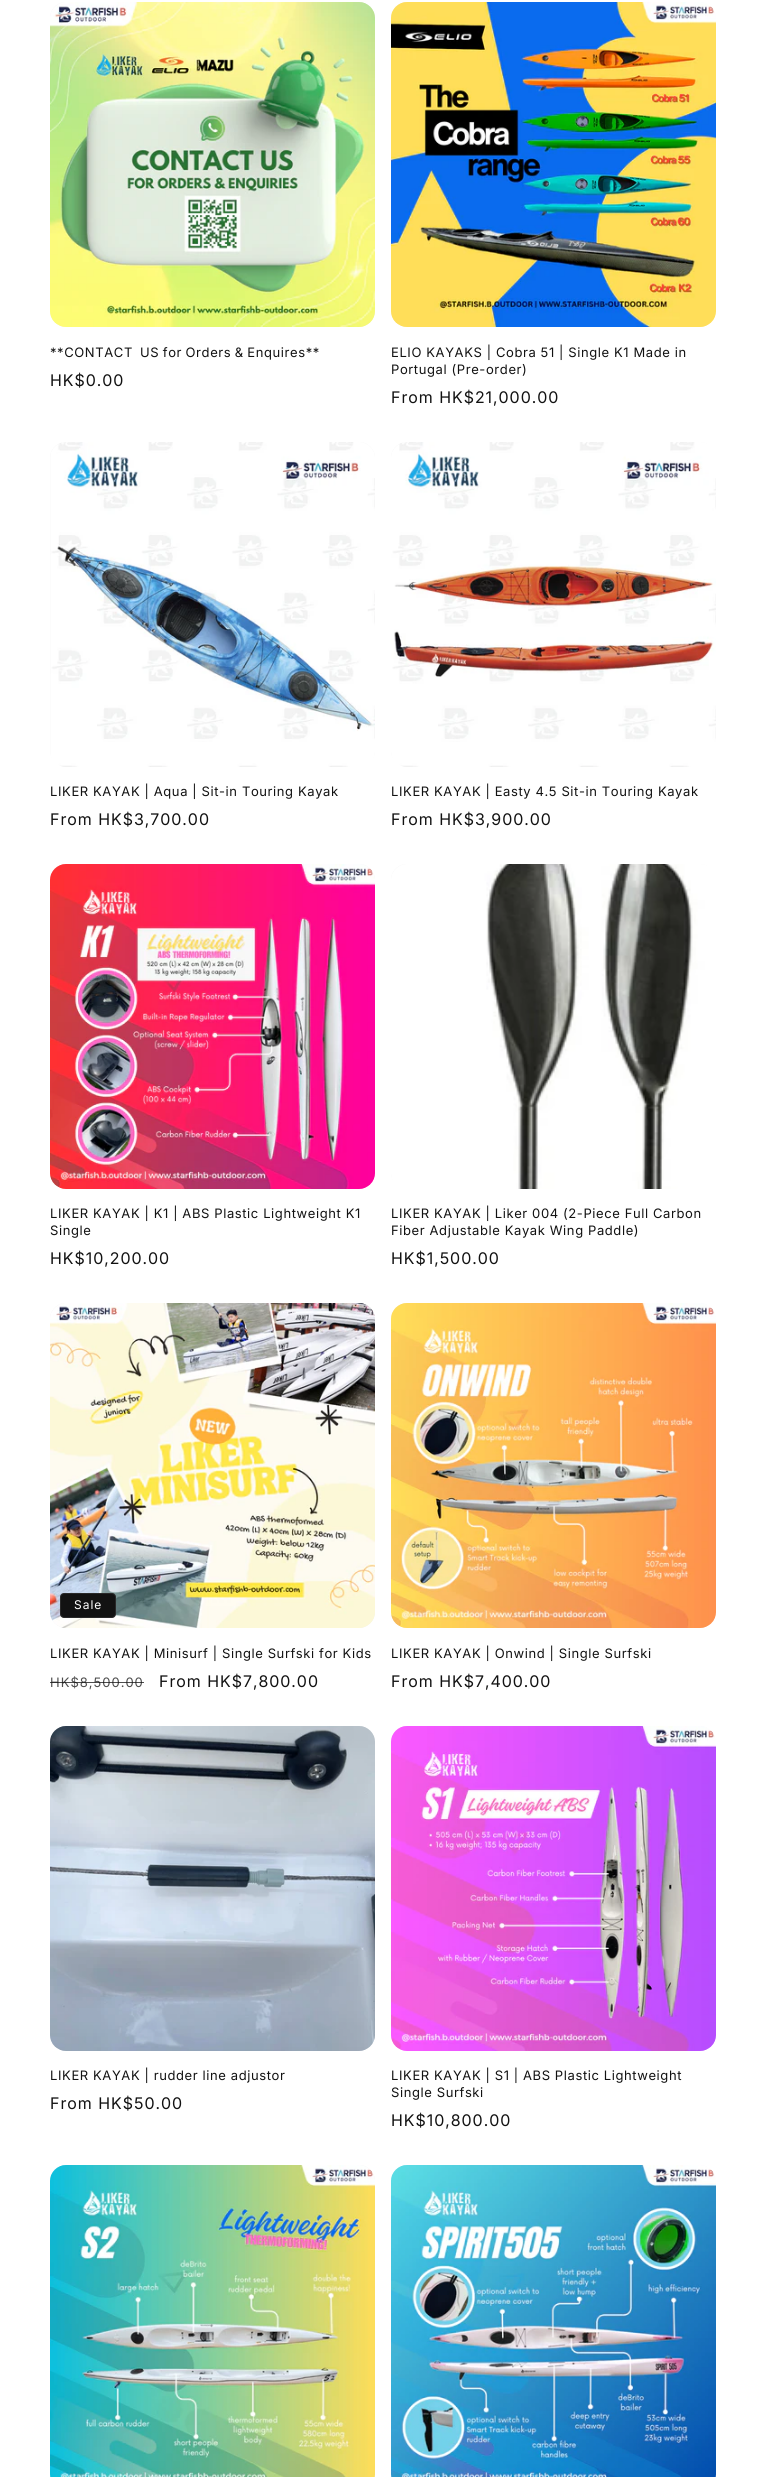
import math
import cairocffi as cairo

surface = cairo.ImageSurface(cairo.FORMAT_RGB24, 765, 2477)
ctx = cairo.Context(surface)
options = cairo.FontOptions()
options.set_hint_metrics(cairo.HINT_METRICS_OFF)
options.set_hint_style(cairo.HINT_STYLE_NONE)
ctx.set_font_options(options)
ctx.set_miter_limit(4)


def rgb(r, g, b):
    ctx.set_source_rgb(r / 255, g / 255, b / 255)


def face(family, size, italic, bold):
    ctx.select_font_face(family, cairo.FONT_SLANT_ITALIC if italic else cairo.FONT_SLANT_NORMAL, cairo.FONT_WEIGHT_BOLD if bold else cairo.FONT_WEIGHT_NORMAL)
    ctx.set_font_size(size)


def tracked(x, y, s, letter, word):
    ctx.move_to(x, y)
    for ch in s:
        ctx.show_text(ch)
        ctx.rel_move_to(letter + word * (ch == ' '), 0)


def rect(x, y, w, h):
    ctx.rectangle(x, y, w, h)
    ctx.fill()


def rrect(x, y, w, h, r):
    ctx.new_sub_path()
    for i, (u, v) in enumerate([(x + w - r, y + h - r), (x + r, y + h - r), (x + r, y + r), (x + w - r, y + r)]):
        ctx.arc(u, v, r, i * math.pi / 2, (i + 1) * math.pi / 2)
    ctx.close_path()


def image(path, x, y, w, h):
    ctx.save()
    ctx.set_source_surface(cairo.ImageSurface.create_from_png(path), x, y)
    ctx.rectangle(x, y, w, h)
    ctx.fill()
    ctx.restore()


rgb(255, 255, 255)
ctx.paint()
rgb(243, 243, 243)
rrect(50, 2, 325, 325, 16)
ctx.fill()
image('image0.png', 50, 2, 325, 325)
face('Inter', 13, 0, 0)
rgb(18, 18, 18)
tracked(50, 357, '**CONTACT', 0.6, -0.75)
tracked(140, 357, 'US for Orders & Enquires**', 0.6, -0.75)
face('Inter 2', 16, 0, 0)
tracked(50, 386, 'HK$0.00', 1, 0)
rgb(243, 243, 243)
rrect(391, 2, 324, 325, 16)
ctx.fill()
image('image1.png', 391, 2, 325, 325)
face('Inter', 13, 0, 0)
rgb(18, 18, 18)
tracked(391, 357, 'ELIO KAYAKS | Cobra 51 | Single K1 Made in', 0.6, 0)
tracked(391, 374, 'Portugal (Pre-order)', 0.6, 0)
face('Inter 2', 16, 0, 0)
tracked(391, 403, 'From HK$21,000.00', 1, 0)
rgb(243, 243, 243)
rrect(50, 442, 325, 324, 16)
ctx.fill()
image('image2.png', 50, 442, 325, 325)
face('Inter', 13, 0, 0)
rgb(18, 18, 18)
tracked(50, 796, 'LIKER KAYAK | Aqua | Sit-in Touring Kayak', 0.6, 0)
face('Inter 2', 16, 0, 0)
tracked(50, 825, 'From HK$3,700.00', 1, 0)
rgb(243, 243, 243)
rrect(391, 442, 324, 324, 16)
ctx.fill()
image('image3.png', 391, 442, 325, 325)
face('Inter', 13, 0, 0)
rgb(18, 18, 18)
tracked(391, 796, 'LIKER KAYAK | Easty 4.5 Sit-in Touring Kayak', 0.6, 0)
face('Inter 2', 16, 0, 0)
tracked(391, 825, 'From HK$3,900.00', 1, 0)
rgb(243, 243, 243)
rrect(50, 864, 325, 324, 16)
ctx.fill()
image('image4.png', 50, 864, 325, 325)
face('Inter', 13, 0, 0)
rgb(18, 18, 18)
tracked(50, 1218, 'LIKER KAYAK | K1 | ABS Plastic Lightweight K1', 0.6, 0)
tracked(50, 1235, 'Single', 0.6, 0)
face('Inter 2', 16, 0, 0)
tracked(50, 1264, 'HK$10,200.00', 1, 0)
rgb(243, 243, 243)
rrect(391, 864, 324, 324, 16)
ctx.fill()
image('image5.png', 391, 864, 324, 325)
face('Inter', 13, 0, 0)
rgb(18, 18, 18)
tracked(391, 1218, 'LIKER KAYAK | Liker 004 (2-Piece Full Carbon', 0.6, 0)
tracked(391, 1235, 'Fiber Adjustable Kayak Wing Paddle)', 0.6, 0)
face('Inter 2', 16, 0, 0)
tracked(391, 1264, 'HK$1,500.00', 1, 0)
rgb(243, 243, 243)
rrect(50, 1303, 325, 325, 16)
ctx.fill()
image('image6.png', 50, 1303, 325, 325)
rgb(18, 18, 18)
rrect(60, 1593, 56, 25, 4)
ctx.fill()
rrect(60.5, 1593.5, 55, 24, 3.5)
ctx.set_source_rgba(1, 1, 1, 0.1)
ctx.set_line_width(1)
ctx.stroke()
face('Inter', 12, 0, 0)
rgb(255, 255, 255)
tracked(74, 1609, 'Sale', 1, 0)
face('Inter', 13, 0, 0)
rgb(18, 18, 18)
tracked(50, 1658, 'LIKER KAYAK | Minisurf | Single Surfski for Kids', 0.6, 0)
rgb(77, 77, 77)
tracked(50, 1687, 'HK$8,500.00', 1, 0)
ctx.set_source_rgba(0.071, 0.071, 0.071, 0.75)
rect(50, 1682, 94, 1)
face('Inter 2', 16, 0, 0)
rgb(18, 18, 18)
tracked(159, 1687, 'From HK$7,800.00', 1, 0)
rgb(243, 243, 243)
rrect(391, 1303, 324, 325, 16)
ctx.fill()
image('image7.png', 391, 1303, 325, 325)
face('Inter', 13, 0, 0)
rgb(18, 18, 18)
tracked(391, 1658, 'LIKER KAYAK | Onwind | Single Surfski', 0.6, 0)
face('Inter 2', 16, 0, 0)
tracked(391, 1687, 'From HK$7,400.00', 1, 0)
rgb(243, 243, 243)
rrect(50, 1726, 325, 324, 16)
ctx.fill()
image('image8.png', 50, 1726, 325, 325)
face('Inter', 13, 0, 0)
rgb(18, 18, 18)
tracked(50, 2080, 'LIKER KAYAK | rudder line adjustor', 0.6, 0)
face('Inter 2', 16, 0, 0)
tracked(50, 2109, 'From HK$50.00', 1, 0)
rgb(243, 243, 243)
rrect(391, 1726, 324, 324, 16)
ctx.fill()
image('image9.png', 391, 1726, 325, 325)
face('Inter', 13, 0, 0)
rgb(18, 18, 18)
tracked(391, 2080, 'LIKER KAYAK | S1 | ABS Plastic Lightweight', 0.6, 0)
tracked(391, 2097, 'Single Surfski', 0.6, 0)
face('Inter 2', 16, 0, 0)
tracked(391, 2126, 'HK$10,800.00', 1, 0)
rgb(243, 243, 243)
rrect(50, 2165, 325, 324, 16)
ctx.fill()
image('image10.png', 50, 2165, 325, 312)
rrect(391, 2165, 324, 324, 16)
ctx.fill()
image('image11.png', 391, 2165, 325, 312)
surface.write_to_png('render.png')
